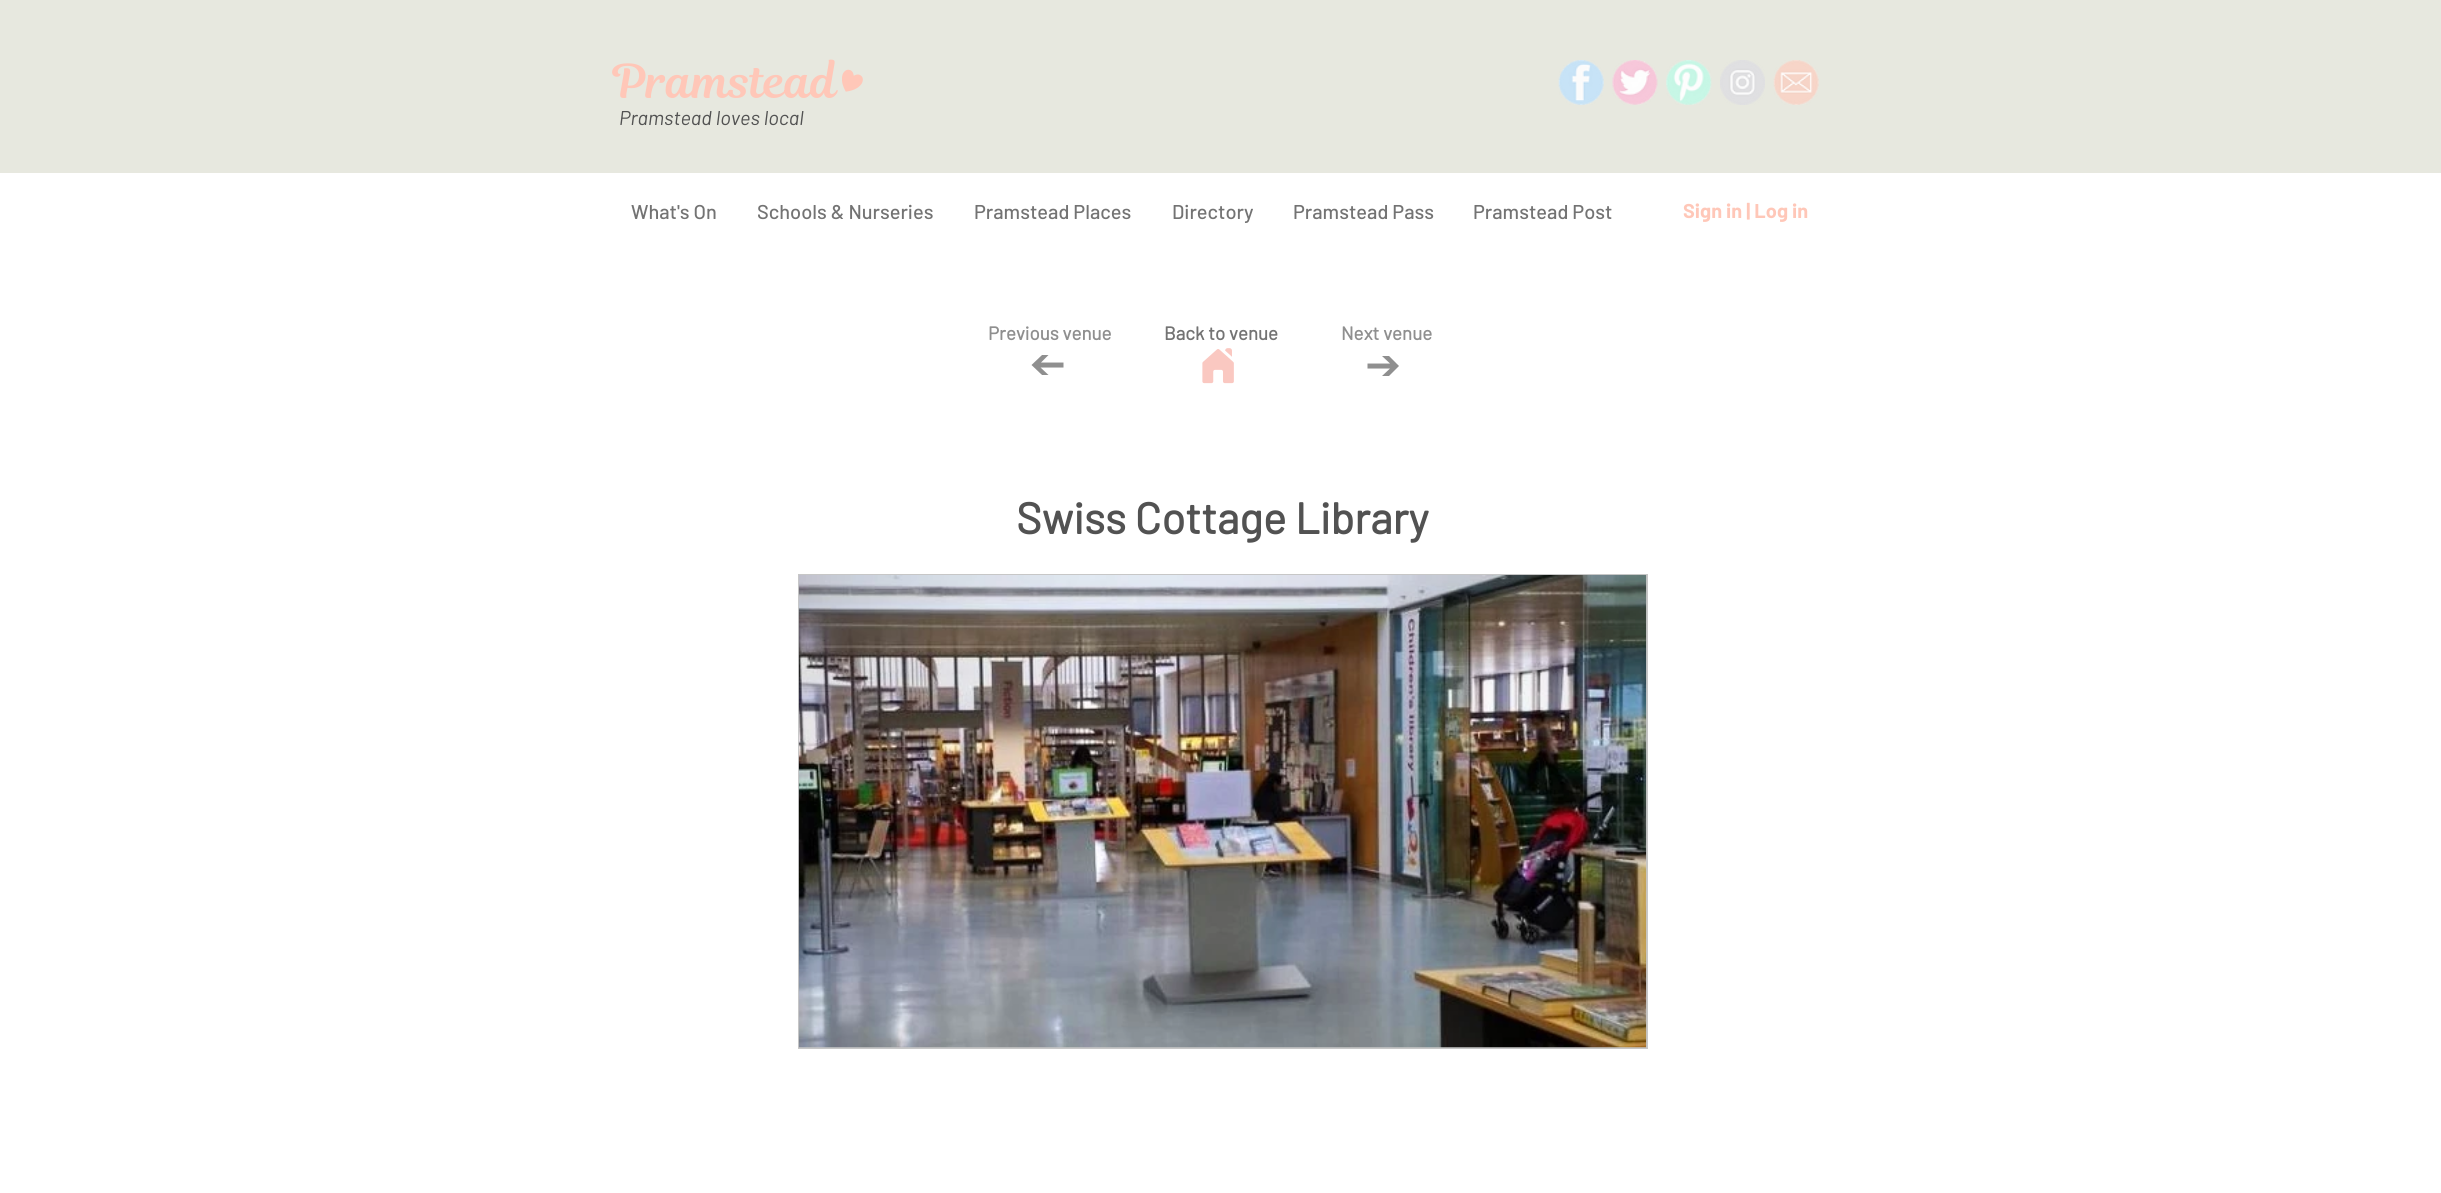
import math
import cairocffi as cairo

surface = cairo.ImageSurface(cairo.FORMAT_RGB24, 2441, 1193)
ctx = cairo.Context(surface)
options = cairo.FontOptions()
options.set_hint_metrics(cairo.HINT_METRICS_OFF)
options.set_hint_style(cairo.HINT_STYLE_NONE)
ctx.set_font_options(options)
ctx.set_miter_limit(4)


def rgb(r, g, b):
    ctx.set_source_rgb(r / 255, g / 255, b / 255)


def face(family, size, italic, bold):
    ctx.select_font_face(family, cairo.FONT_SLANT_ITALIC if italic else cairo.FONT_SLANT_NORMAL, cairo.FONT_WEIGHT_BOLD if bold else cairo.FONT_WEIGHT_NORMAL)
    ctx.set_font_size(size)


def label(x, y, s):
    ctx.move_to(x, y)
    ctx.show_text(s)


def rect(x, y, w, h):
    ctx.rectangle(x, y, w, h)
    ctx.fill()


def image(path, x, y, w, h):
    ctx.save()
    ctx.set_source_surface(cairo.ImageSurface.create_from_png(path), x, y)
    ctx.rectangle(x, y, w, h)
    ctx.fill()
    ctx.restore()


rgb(231, 232, 223)
ctx.paint()
face('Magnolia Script', 46.25, 0, 0)
rgb(255, 199, 184)
label(613, 98, 'Pramstead')
image('image0.png', 842, 69, 21, 23)
face('Barlow', 20, 1, 0)
rgb(82, 82, 82)
label(619, 125, 'Pramstead loves local')
image('image1.png', 1558, 60, 46, 45)
image('image2.png', 1612, 60, 46, 45)
image('image3.png', 1666, 60, 46, 45)
image('image4.png', 1720, 60, 45, 45)
image('image5.png', 1773, 60, 46, 45)
rgb(255, 255, 255)
rect(0, 173, 2441, 1020)
face('Barlow Medium', 20, 0, 0)
rgb(115, 115, 115)
label(631, 219, 'What\'s On')
label(757, 219, 'Schools & Nurseries')
label(974, 219, 'Pramstead Places')
label(1172, 219, 'Directory')
label(1293, 219, 'Pramstead Pass')
label(1473, 219, 'Pramstead Post')
face('Barlow', 20, 0, 1)
rgb(255, 199, 184)
label(1683, 218, 'Sign in | Log in')
face('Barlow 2', 18.75, 0, 1)
rgb(143, 143, 143)
label(988, 340, 'Previous venue')
ctx.new_path()
ctx.move_to(1042, 355)
ctx.line_to(1031.5, 365)
ctx.line_to(1042, 375)
ctx.line_to(1048.5, 375)
ctx.line_to(1040.5, 367.5)
ctx.line_to(1063.5, 367.5)
ctx.line_to(1063.5, 362.5)
ctx.line_to(1041, 362.5)
ctx.line_to(1048.5, 355)
ctx.close_path()
ctx.fill()
rgb(115, 115, 115)
label(1164, 340, 'Back to venue')
image('image6.png', 1202, 348, 32, 36)
rgb(143, 143, 143)
label(1341, 340, 'Next venue')
ctx.new_path()
ctx.move_to(1389, 376)
ctx.line_to(1399, 366)
ctx.line_to(1389, 356)
ctx.line_to(1382, 356)
ctx.line_to(1390, 363.5)
ctx.line_to(1367.5, 363.5)
ctx.line_to(1367.5, 368.5)
ctx.line_to(1390, 368.5)
ctx.line_to(1382, 376)
ctx.close_path()
ctx.fill()
face('Barlow 2', 43.75, 0, 1)
rgb(82, 82, 82)
label(1016, 534, 'Swiss Cottage Library')
rgb(199, 199, 199)
rect(798, 574, 850, 475)
image('image7.png', 798, 575, 849, 473)
surface.write_to_png('render.png')
